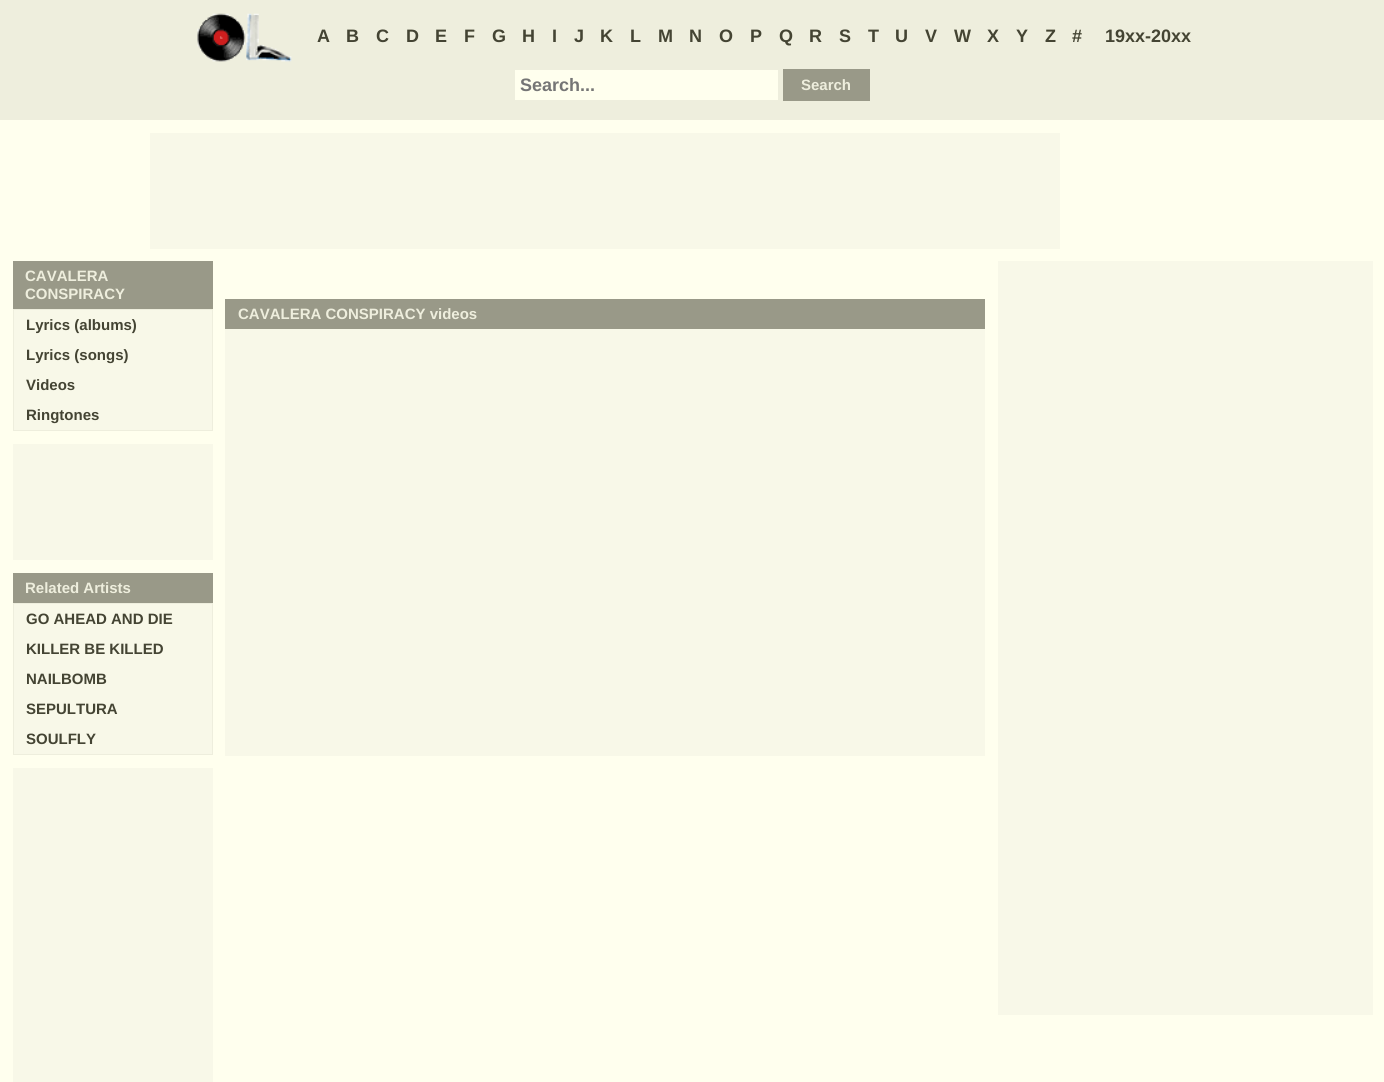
import math
import cairocffi as cairo

surface = cairo.ImageSurface(cairo.FORMAT_RGB24, 1384, 1082)
ctx = cairo.Context(surface)
options = cairo.FontOptions()
options.set_hint_metrics(cairo.HINT_METRICS_OFF)
options.set_hint_style(cairo.HINT_STYLE_NONE)
ctx.set_font_options(options)
ctx.set_miter_limit(4)


def rgb(r, g, b):
    ctx.set_source_rgb(r / 255, g / 255, b / 255)


def face(family, size, italic, bold):
    ctx.select_font_face(family, cairo.FONT_SLANT_ITALIC if italic else cairo.FONT_SLANT_NORMAL, cairo.FONT_WEIGHT_BOLD if bold else cairo.FONT_WEIGHT_NORMAL)
    ctx.set_font_size(size)


def label(x, y, s):
    ctx.move_to(x, y)
    ctx.show_text(s)


def rect(x, y, w, h):
    ctx.rectangle(x, y, w, h)
    ctx.fill()


def image(path, x, y, w, h):
    ctx.save()
    ctx.set_source_surface(cairo.ImageSurface.create_from_png(path), x, y)
    ctx.rectangle(x, y, w, h)
    ctx.fill()
    ctx.restore()


rgb(255, 255, 238)
ctx.paint()
rgb(238, 238, 221)
rect(0, 0, 1384, 120)
image('image0.png', 197, 13, 95, 49)
face('Liberation Sans', 18, 0, 1)
rgb(68, 68, 51)
label(317, 42, 'A')
label(346, 42, 'B')
label(376, 42, 'C')
label(406, 42, 'D')
label(435, 42, 'E')
label(464, 42, 'F')
label(492, 42, 'G')
label(522, 42, 'H')
label(552, 42, 'I')
label(574, 42, 'J')
label(600, 42, 'K')
label(630, 42, 'L')
label(658, 42, 'M')
label(689, 42, 'N')
label(719, 42, 'O')
label(750, 42, 'P')
label(779, 42, 'Q')
label(809, 42, 'R')
label(839, 42, 'S')
label(868, 42, 'T')
label(895, 42, 'U')
label(925, 42, 'V')
label(954, 42, 'W')
label(987, 42, 'X')
label(1016, 42, 'Y')
label(1045, 42, 'Z')
label(1072, 42, '#')
label(1105, 42, '19xx-20xx')
rgb(255, 255, 238)
rect(515, 70, 263, 30)
rgb(117, 117, 117)
label(520, 91, 'Search...')
rgb(153, 153, 136)
rect(783, 69, 87, 32)
face('Liberation Sans', 15, 0, 1)
rgb(238, 238, 221)
label(801, 90, 'Search')
rgb(248, 248, 232)
rect(150, 133, 910, 116)
rgb(153, 153, 136)
rect(13, 261, 200, 48)
rgb(238, 238, 221)
label(25, 281, 'CAVALERA')
label(25, 299, 'CONSPIRACY')
rgb(248, 248, 232)
ctx.rectangle(13.5, 309.5, 199, 121)
ctx.fill_preserve()
rgb(238, 238, 221)
ctx.set_line_width(1)
ctx.stroke()
rgb(68, 68, 51)
label(26, 330, 'Lyrics (albums)')
label(26, 360, 'Lyrics (songs)')
label(26, 390, 'Videos')
label(26, 420, 'Ringtones')
rgb(248, 248, 232)
rect(13, 444, 200, 116)
rgb(153, 153, 136)
rect(13, 573, 200, 30)
rgb(238, 238, 221)
label(25, 593, 'Related Artists')
rgb(248, 248, 232)
ctx.rectangle(13.5, 603.5, 199, 151)
ctx.fill_preserve()
rgb(238, 238, 221)
ctx.stroke()
rgb(68, 68, 51)
label(26, 624, 'GO AHEAD AND DIE')
label(26, 654, 'KILLER BE KILLED')
label(26, 684, 'NAILBOMB')
label(26, 714, 'SEPULTURA')
label(26, 744, 'SOULFLY')
rgb(248, 248, 232)
rect(13, 768, 200, 314)
rgb(153, 153, 136)
rect(225, 299, 760, 30)
rgb(238, 238, 221)
label(238, 319, 'CAVALERA CONSPIRACY videos')
rgb(248, 248, 232)
rect(225, 329, 760, 427)
rect(998, 261, 375, 754)
surface.write_to_png('render.png')
